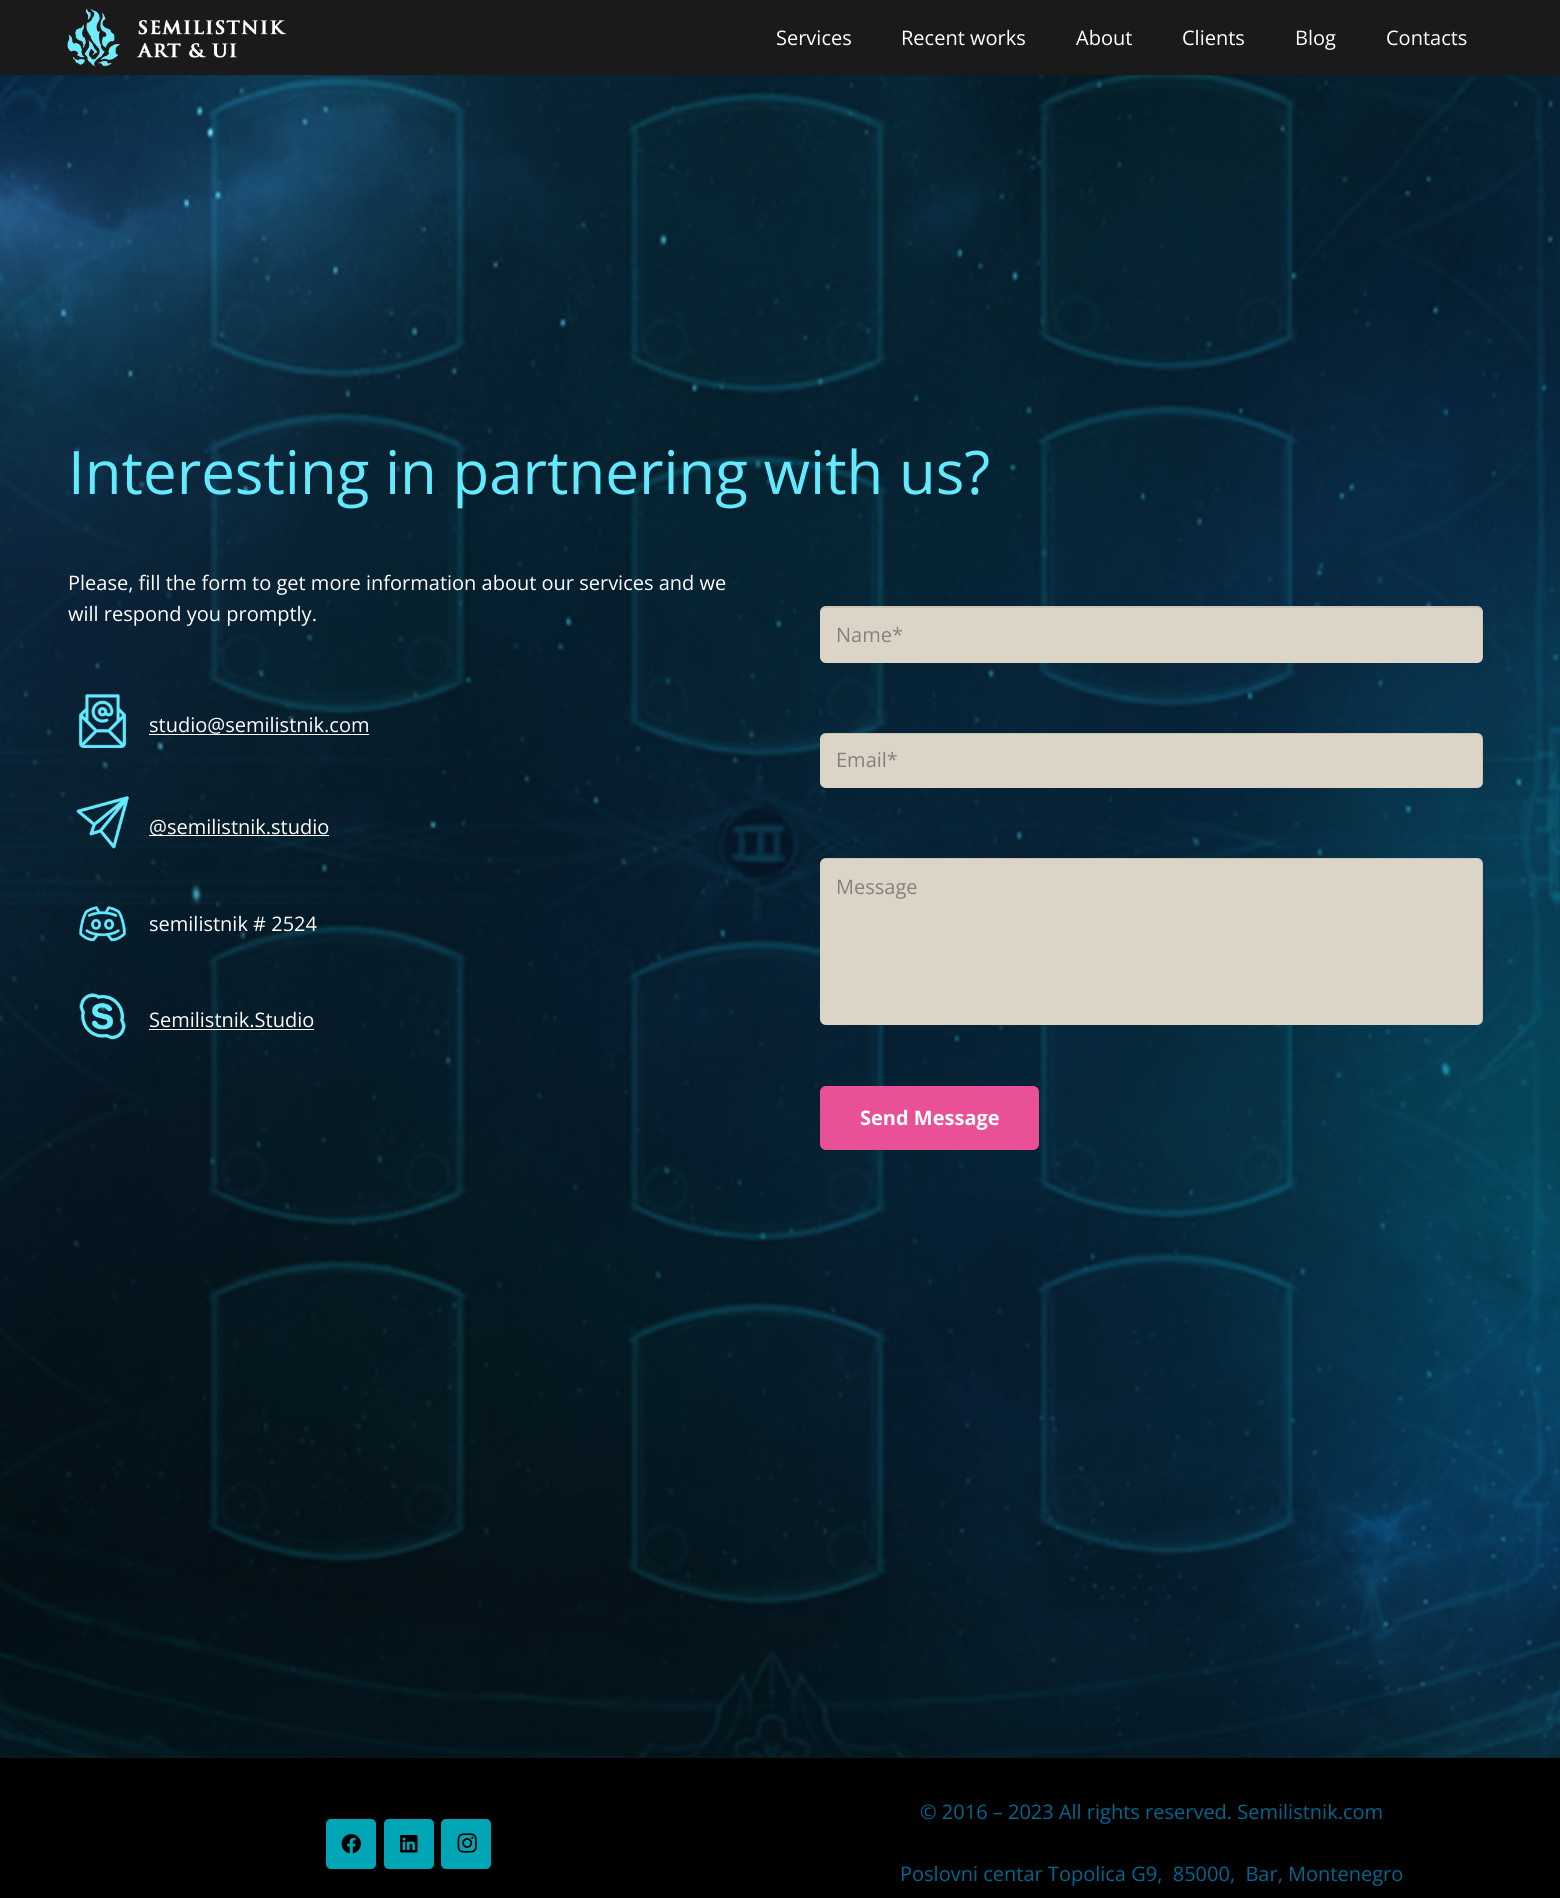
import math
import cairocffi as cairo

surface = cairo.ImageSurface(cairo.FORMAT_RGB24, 1560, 1898)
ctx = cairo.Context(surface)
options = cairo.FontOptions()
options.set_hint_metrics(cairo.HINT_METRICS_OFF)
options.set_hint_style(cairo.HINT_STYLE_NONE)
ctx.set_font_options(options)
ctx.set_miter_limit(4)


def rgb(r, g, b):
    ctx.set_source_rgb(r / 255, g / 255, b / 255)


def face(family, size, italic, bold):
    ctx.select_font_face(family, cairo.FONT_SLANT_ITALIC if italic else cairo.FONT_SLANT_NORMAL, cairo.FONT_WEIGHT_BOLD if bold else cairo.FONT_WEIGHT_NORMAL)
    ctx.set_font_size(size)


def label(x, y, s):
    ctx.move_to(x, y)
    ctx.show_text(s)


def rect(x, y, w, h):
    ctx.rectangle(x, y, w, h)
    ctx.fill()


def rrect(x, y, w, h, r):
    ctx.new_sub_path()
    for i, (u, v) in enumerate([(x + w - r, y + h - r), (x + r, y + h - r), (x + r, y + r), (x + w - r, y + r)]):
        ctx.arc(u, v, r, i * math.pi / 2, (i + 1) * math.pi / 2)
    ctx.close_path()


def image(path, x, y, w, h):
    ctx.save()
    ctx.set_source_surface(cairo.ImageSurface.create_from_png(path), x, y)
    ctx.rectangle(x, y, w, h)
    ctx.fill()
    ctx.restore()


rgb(26, 26, 26)
ctx.paint()
image('image1.png', 0, 75, 1560, 1683)
ctx.set_source_rgba(0, 0, 0, 0.08)
rect(0, 75, 1560, 1)
image('image0.png', 67, 8, 220, 59)
face('Open Sans', 20, 0, 0)
rgb(255, 255, 255)
label(776, 45, 'Services')
label(901, 45, 'Recent works')
label(1076, 45, 'About')
label(1182, 45, 'Clients')
label(1295, 45, 'Blog')
label(1386, 45, 'Contacts')
face('Open Sans', 60, 0, 0)
rgb(99, 234, 255)
label(68, 494, 'Interesting in partnering with us?')
face('Open Sans', 20, 0, 0)
rgb(255, 255, 255)
label(68, 590, 'Please, fill the form to get more information about our services and we')
label(68, 621, 'will respond you promptly.')
image('image2.png', 78, 694, 49, 54)
label(149, 732, 'studio@semilistnik.com')
rect(149, 734, 220, 1)
image('image3.png', 76, 796, 53, 53)
rect(149, 835, 180, 1)
label(149, 834, '@semilistnik.studio')
image('image4.png', 79, 906, 47, 36)
label(149, 931, 'semilistnik # 2524')
image('image5.png', 79, 993, 47, 47)
label(149, 1027, 'Semilistnik.Studio')
rect(149, 1029, 165, 1)
rgb(220, 213, 199)
rrect(820, 606, 663, 57, 6)
ctx.fill()
ctx.set_source_rgba(0, 0, 0, 0.08)
ctx.new_path()
ctx.move_to(826, 608)
ctx.line_to(1476, 608)
ctx.curve_to(1480, 608, 1482, 610, 1482, 614)
ctx.line_to(1482, 658)
ctx.curve_to(1482, 659, 1482, 660, 1481, 661)
ctx.curve_to(1482, 660, 1483, 659, 1483, 657)
ctx.line_to(1483, 612)
ctx.curve_to(1483, 609, 1480, 606, 1477, 606)
ctx.line_to(826, 606)
ctx.curve_to(823, 606, 820, 609, 820, 612)
ctx.line_to(820, 614)
ctx.curve_to(820, 610, 823, 608, 826, 608)
ctx.close_path()
ctx.fill()
rgb(133, 129, 122)
label(836, 642, 'Name*')
rgb(220, 213, 199)
rrect(820, 733, 663, 55, 6)
ctx.fill()
ctx.set_source_rgba(0, 0, 0, 0.08)
ctx.new_path()
ctx.move_to(826, 734)
ctx.line_to(1476, 734)
ctx.curve_to(1480, 734, 1482, 736, 1482, 740)
ctx.line_to(1482, 783)
ctx.curve_to(1482, 784, 1482, 785, 1481, 786)
ctx.curve_to(1482, 785, 1483, 784, 1483, 782)
ctx.line_to(1483, 739)
ctx.curve_to(1483, 736, 1480, 733, 1477, 733)
ctx.line_to(826, 733)
ctx.curve_to(823, 733, 820, 736, 820, 739)
ctx.line_to(820, 740)
ctx.curve_to(820, 736, 823, 734, 826, 734)
ctx.close_path()
ctx.fill()
rgb(133, 129, 122)
label(836, 767, 'Email*')
rgb(220, 213, 199)
rrect(820, 858, 663, 167, 6)
ctx.fill()
ctx.set_source_rgba(0, 0, 0, 0.08)
ctx.new_path()
ctx.move_to(826, 859)
ctx.line_to(1476, 859)
ctx.curve_to(1480, 859, 1482, 861, 1482, 865)
ctx.line_to(1482, 1020)
ctx.line_to(1481, 1023)
ctx.curve_to(1482, 1022, 1483, 1021, 1483, 1019)
ctx.line_to(1483, 864)
ctx.curve_to(1483, 861, 1480, 858, 1477, 858)
ctx.line_to(826, 858)
ctx.curve_to(823, 858, 820, 861, 820, 864)
ctx.line_to(820, 865)
ctx.curve_to(820, 861, 823, 859, 826, 859)
ctx.close_path()
ctx.fill()
rgb(133, 129, 122)
label(836, 894, 'Message')
rgb(233, 80, 149)
rrect(820, 1086, 219, 64, 6)
ctx.fill()
face('Open Sans', 20, 0, 1)
rgb(255, 255, 255)
label(860, 1125, 'Send Message')
rgb(0, 0, 0)
rect(0, 1758, 1560, 140)
rgb(0, 166, 181)
rrect(326, 1819, 50, 50, 5)
ctx.fill()
image('image6.png', 341, 1834, 20, 20)
rrect(384, 1819, 50, 50, 5)
ctx.fill()
image('image7.png', 400, 1835, 18, 18)
rrect(441, 1819, 50, 50, 5)
ctx.fill()
image('image8.png', 457, 1833, 20, 20)
face('Open Sans', 20, 0, 0)
rgb(3, 102, 143)
label(920, 1819, '© 2016 – 2023 All rights reserved. Semilistnik.com')
label(900, 1881, 'Poslovni centar Topolica G9,  85000,  Bar, Montenegro')
surface.write_to_png('render.png')
